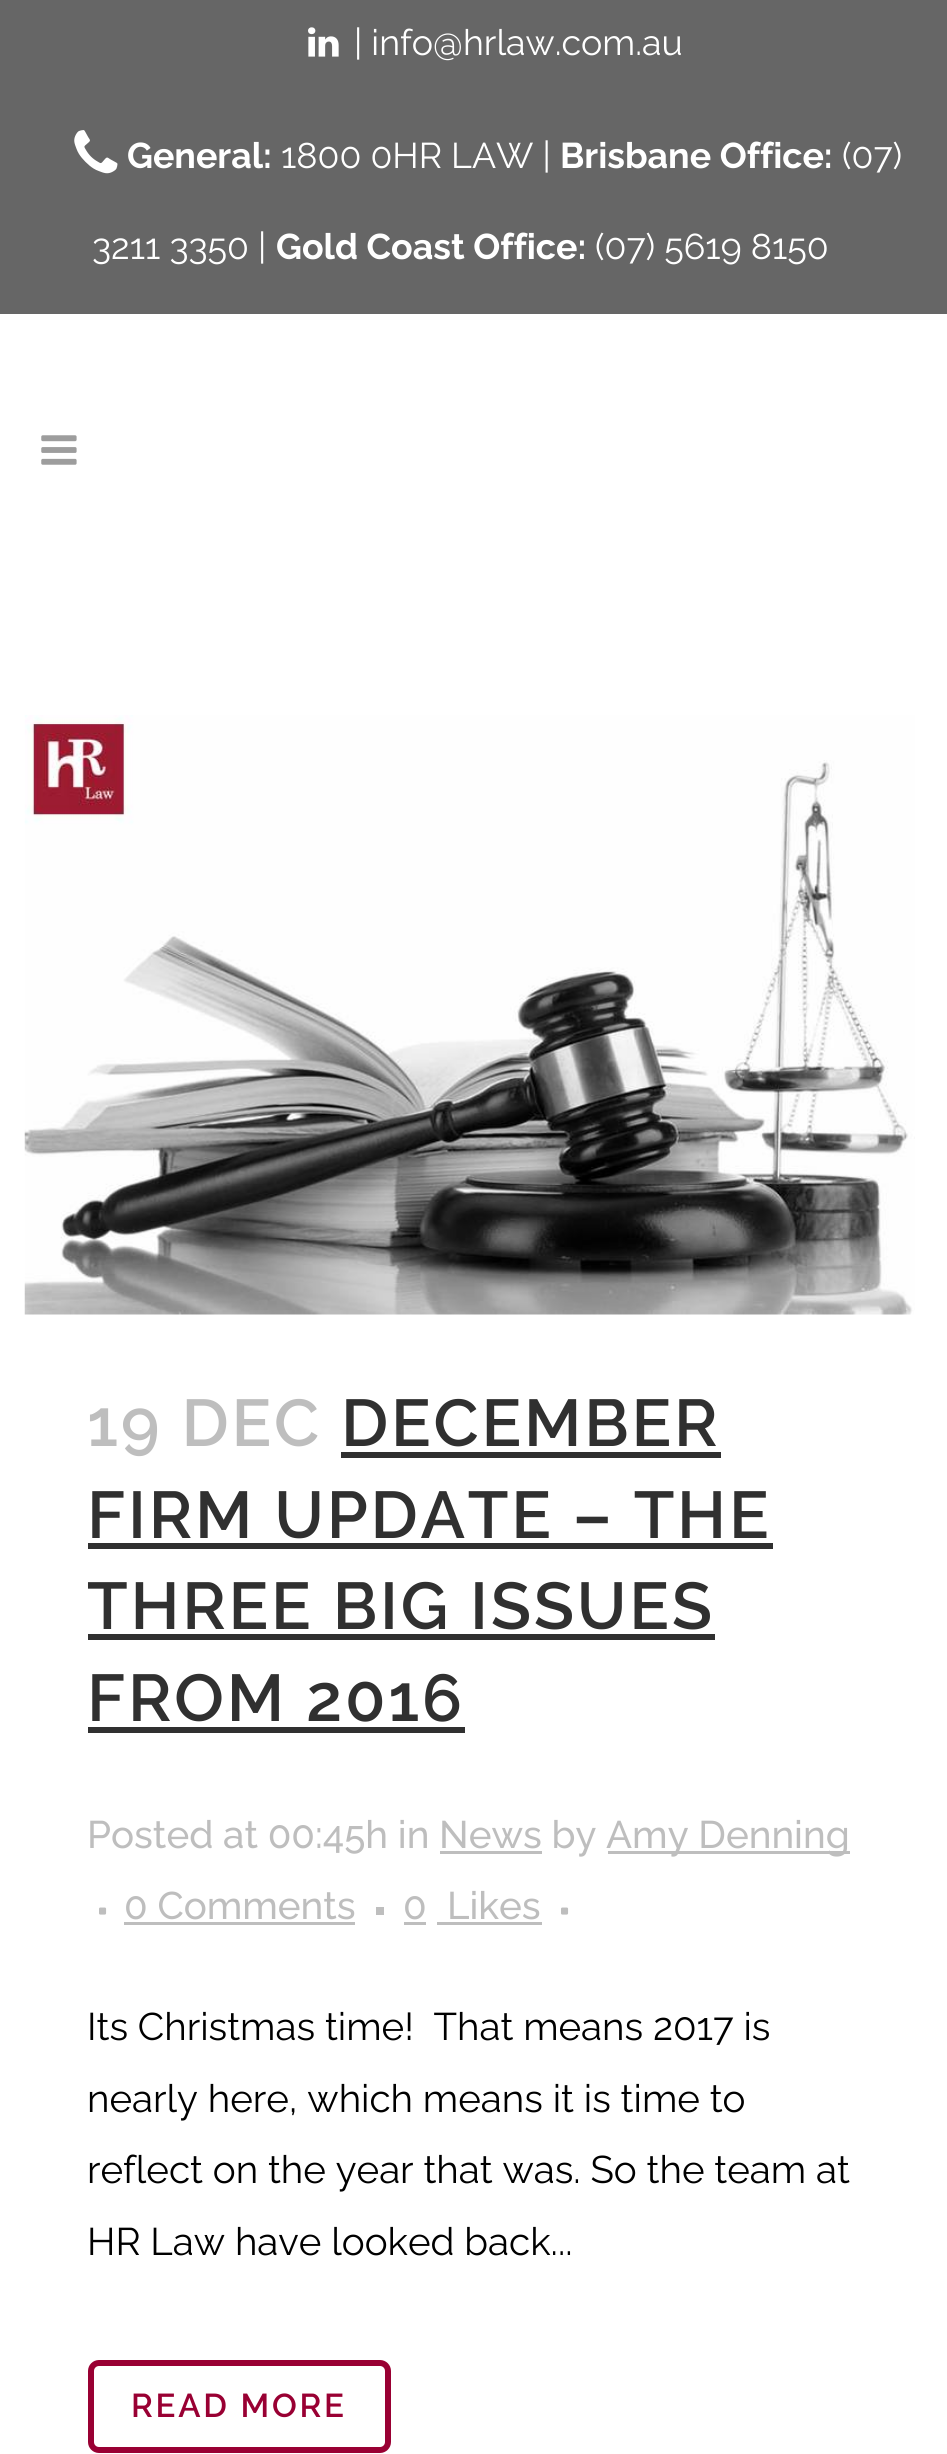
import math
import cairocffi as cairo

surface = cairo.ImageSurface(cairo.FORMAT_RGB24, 947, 2454)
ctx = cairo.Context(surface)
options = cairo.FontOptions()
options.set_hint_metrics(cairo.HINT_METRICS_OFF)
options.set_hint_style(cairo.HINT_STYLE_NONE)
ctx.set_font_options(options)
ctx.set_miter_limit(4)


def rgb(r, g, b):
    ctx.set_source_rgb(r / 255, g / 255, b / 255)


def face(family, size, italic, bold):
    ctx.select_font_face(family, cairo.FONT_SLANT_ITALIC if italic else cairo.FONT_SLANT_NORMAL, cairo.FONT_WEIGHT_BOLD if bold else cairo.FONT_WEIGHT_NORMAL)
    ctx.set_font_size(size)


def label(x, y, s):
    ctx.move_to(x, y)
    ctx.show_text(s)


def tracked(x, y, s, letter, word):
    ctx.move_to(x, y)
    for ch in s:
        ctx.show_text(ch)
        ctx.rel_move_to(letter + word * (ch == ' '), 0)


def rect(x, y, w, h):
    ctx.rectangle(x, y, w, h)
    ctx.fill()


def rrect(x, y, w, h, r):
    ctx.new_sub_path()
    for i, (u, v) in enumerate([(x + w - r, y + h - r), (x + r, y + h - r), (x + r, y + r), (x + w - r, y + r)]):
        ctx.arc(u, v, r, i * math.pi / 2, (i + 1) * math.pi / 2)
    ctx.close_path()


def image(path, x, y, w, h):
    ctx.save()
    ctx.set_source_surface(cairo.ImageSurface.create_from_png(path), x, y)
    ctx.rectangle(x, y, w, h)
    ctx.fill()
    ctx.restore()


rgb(255, 255, 255)
ctx.paint()
rgb(102, 102, 102)
rect(0, 0, 947, 314)
image('image0.png', 308, 27, 31, 30)
face('Raleway', 35.75, 0, 0)
rgb(255, 255, 255)
label(354, 55, '| info@hrlaw.com.au')
image('image1.png', 74, 130, 44, 44)
face('Raleway', 35.75, 0, 1)
label(127, 168, 'General:')
face('Raleway', 35.75, 0, 0)
label(281, 168, '1800 0HR LAW |')
face('Raleway', 35.75, 0, 1)
label(560, 168, 'Brisbane Office:')
face('Raleway', 35.75, 0, 0)
label(842, 168, '(07)')
label(92, 259, '3211 3350 |')
face('Raleway', 35.75, 0, 1)
label(276, 259, 'Gold Coast Office:')
face('Raleway', 35.75, 0, 0)
label(595, 259, '(07) 5619 8150')
image('image2.png', 41, 435, 36, 30)
image('image3.png', 24, 715, 891, 600)
face('Raleway SemiBold', 66, 0, 0)
rgb(190, 190, 190)
tracked(87, 1446, '19 DEC', 2.75, 0)
rgb(48, 48, 48)
tracked(341, 1446, 'DECEMBER', 2.75, 0)
rect(341, 1452, 380, 6)
tracked(87, 1538, 'FIRM UPDATE – THE', 2.75, 0)
rect(88, 1543, 685, 6)
tracked(87, 1629, 'THREE BIG ISSUES', 2.75, 0)
rect(88, 1634, 627, 6)
tracked(87, 1721, 'FROM 2016', 2.75, 0)
rect(88, 1727, 377, 6)
face('Raleway Medium', 38.5, 0, 0)
rgb(190, 190, 190)
label(87, 1848, 'Posted at 00:45h in News by')
rect(608, 1851, 242, 3)
label(606, 1848, 'Amy Denning')
rect(440, 1851, 102, 3)
image('image4.png', 99, 1907, 8, 8)
label(124, 1919, '0 Comments')
rect(124, 1922, 231, 3)
rect(376, 1907, 8, 8)
label(403, 1919, '0')
rect(404, 1922, 22, 3)
label(447, 1919, 'Likes')
rect(437, 1922, 105, 3)
image('image4.png', 561, 1907, 8, 8)
face('Raleway', 38.5, 0, 0)
rgb(0, 0, 0)
label(87, 2040, 'Its Christmas time!  That means 2017 is')
label(87, 2112, 'nearly here, which means it is time to')
label(87, 2183, 'reflect on the year that was. So the team at')
label(87, 2255, 'HR Law have looked back...')
rrect(91, 2363, 297, 87, 8)
rgb(153, 0, 51)
ctx.set_line_width(6)
ctx.stroke()
face('Raleway SemiBold', 33, 0, 0)
tracked(131, 2417, 'READ MORE', 2.75, 0)
surface.write_to_png('render.png')
